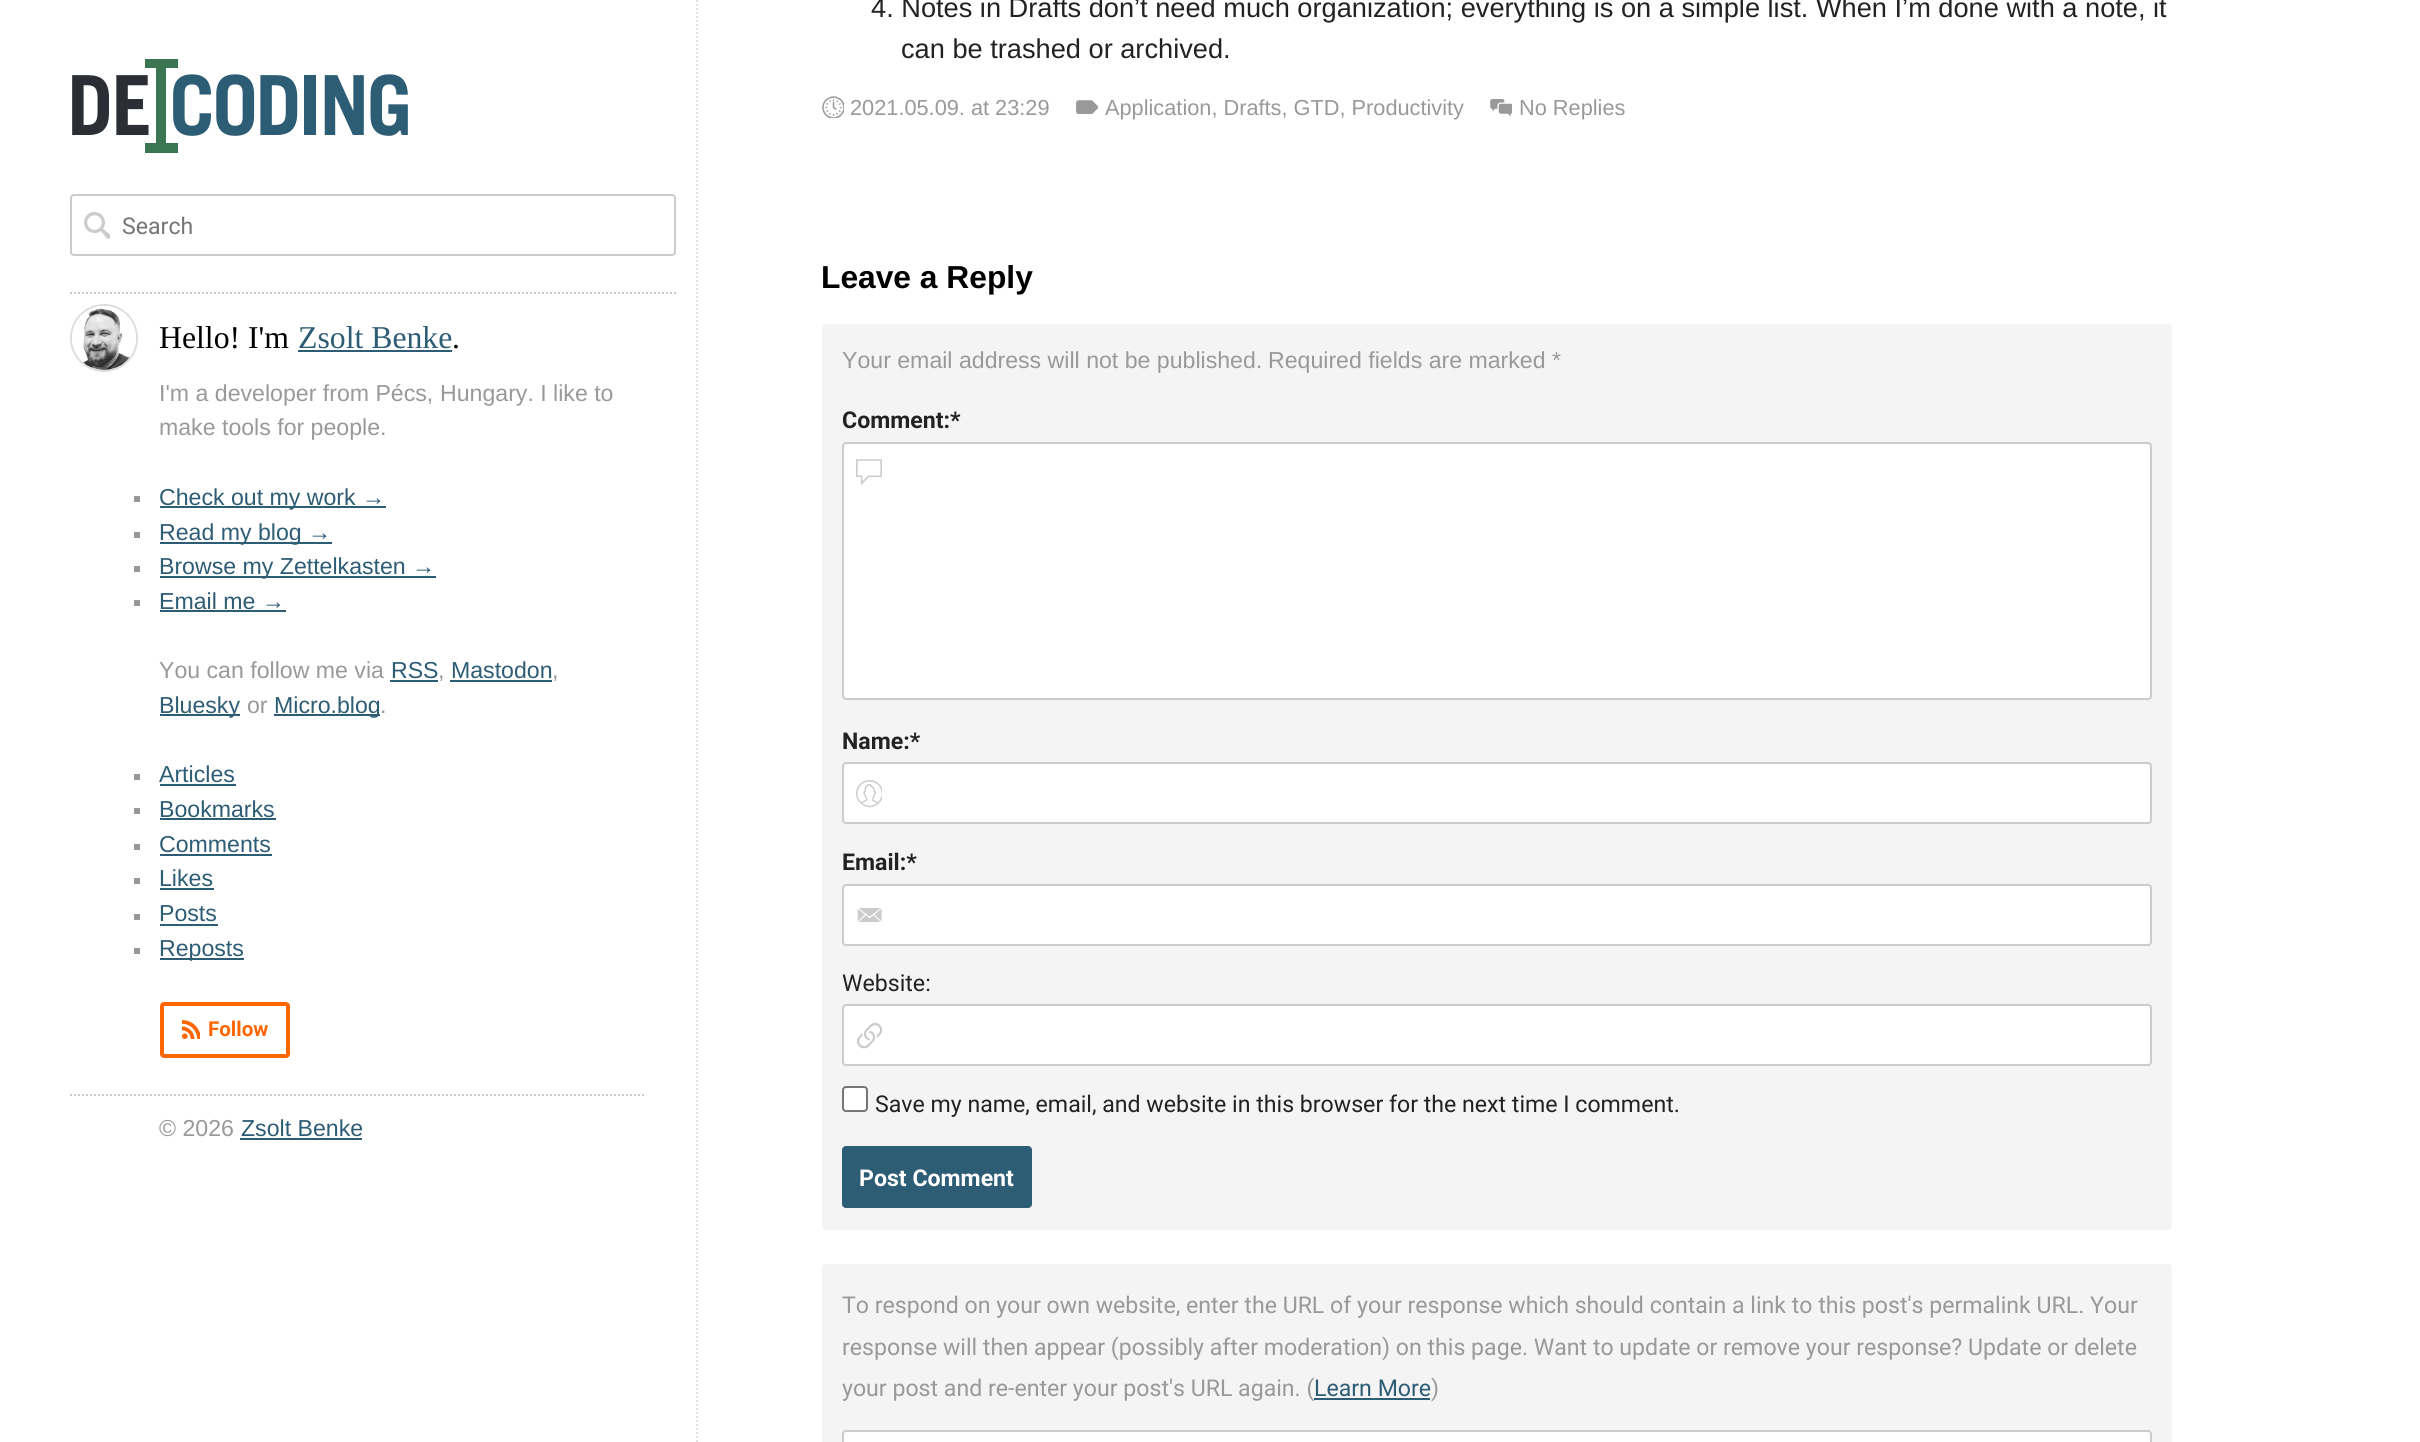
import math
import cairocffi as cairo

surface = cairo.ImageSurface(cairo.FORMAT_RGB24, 2420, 1442)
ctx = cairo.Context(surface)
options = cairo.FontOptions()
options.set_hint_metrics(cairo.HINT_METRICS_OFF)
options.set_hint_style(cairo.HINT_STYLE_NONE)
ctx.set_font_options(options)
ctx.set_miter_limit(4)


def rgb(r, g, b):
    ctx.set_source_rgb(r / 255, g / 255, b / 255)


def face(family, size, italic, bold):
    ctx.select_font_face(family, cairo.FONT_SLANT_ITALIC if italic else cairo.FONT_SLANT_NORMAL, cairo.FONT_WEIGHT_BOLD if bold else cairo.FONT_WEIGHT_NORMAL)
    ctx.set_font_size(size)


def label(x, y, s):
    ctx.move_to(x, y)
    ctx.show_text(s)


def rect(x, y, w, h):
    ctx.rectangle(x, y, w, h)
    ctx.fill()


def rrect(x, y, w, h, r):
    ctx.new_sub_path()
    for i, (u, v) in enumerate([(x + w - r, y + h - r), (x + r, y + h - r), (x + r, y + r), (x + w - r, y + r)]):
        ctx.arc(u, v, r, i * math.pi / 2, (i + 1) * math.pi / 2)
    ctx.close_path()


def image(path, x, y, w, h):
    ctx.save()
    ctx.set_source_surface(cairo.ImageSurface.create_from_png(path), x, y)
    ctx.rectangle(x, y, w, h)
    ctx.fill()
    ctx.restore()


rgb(255, 255, 255)
ctx.paint()
ctx.new_path()
ctx.move_to(697, 0)
ctx.line_to(697, 1442)
rgb(225, 225, 225)
ctx.set_dash([2, 2])
ctx.stroke()
image('image0.png', 72, 59, 336, 94)
rrect(71, 195, 604, 60, 3)
rgb(204, 204, 204)
ctx.set_dash([])
ctx.stroke()
image('image1.png', 84, 212, 26, 27)
face('Roboto', 23.12, 0, 0)
rgb(117, 117, 117)
label(122, 234, 'Search')
ctx.new_path()
ctx.move_to(70, 293)
ctx.line_to(676, 293)
rgb(204, 204, 204)
ctx.set_dash([2, 2])
ctx.stroke()
ctx.arc(104, 338, 33, 0, 2 * math.pi)
rgb(221, 221, 221)
ctx.set_dash([])
ctx.stroke()
image('image2.png', 72, 306, 64, 64)
face('Liberation Serif', 31.75, 0, 0)
rgb(0, 0, 0)
label(159, 348, 'Hello! I\'m')
rgb(45, 92, 117)
label(298, 348, 'Zsolt Benke')
rect(298, 350, 154, 2)
rgb(0, 0, 0)
label(452, 348, '.')
face('Liberation Sans', 23.12, 0, 0)
rgb(153, 153, 153)
label(159, 401, 'I\'m a developer from Pécs,')
label(440, 401, 'Hungary. I like to')
label(159, 435, 'make tools for people.')
rect(134, 496, 6, 6)
rgb(45, 92, 117)
rect(160, 506, 226, 2)
label(159, 505, 'Check out my work →')
rgb(153, 153, 153)
rect(134, 532, 6, 6)
rgb(45, 92, 117)
rect(160, 542, 172, 2)
label(159, 540, 'Read my blog →')
rgb(153, 153, 153)
rect(134, 566, 6, 6)
rgb(45, 92, 117)
rect(160, 576, 276, 2)
label(159, 574, 'Browse my Zettelkasten →')
rgb(153, 153, 153)
rect(134, 600, 6, 6)
rgb(45, 92, 117)
label(159, 609, 'Email me →')
rect(160, 610, 126, 2)
rgb(153, 153, 153)
label(159, 678, 'You can follow me via')
rgb(45, 92, 117)
label(391, 678, 'RSS')
rect(390, 680, 48, 2)
rgb(153, 153, 153)
label(438, 678, ',')
rgb(45, 92, 117)
label(451, 678, 'Mastodon')
rect(450, 680, 102, 2)
rgb(153, 153, 153)
label(552, 678, ',')
rgb(45, 92, 117)
rect(160, 714, 80, 2)
label(159, 713, 'Bluesky')
rgb(153, 153, 153)
label(247, 713, 'or')
rgb(45, 92, 117)
rect(274, 714, 106, 2)
label(274, 713, 'Micro.blog')
rgb(153, 153, 153)
label(380, 713, '.')
rect(134, 774, 6, 6)
rgb(45, 92, 117)
label(159, 782, 'Articles')
rect(160, 784, 76, 2)
rgb(153, 153, 153)
rect(134, 808, 6, 6)
rgb(45, 92, 117)
label(159, 817, 'Bookmarks')
rect(160, 818, 116, 2)
rgb(153, 153, 153)
rect(134, 844, 6, 6)
rgb(45, 92, 117)
label(159, 852, 'Comments')
rect(160, 854, 112, 2)
rgb(153, 153, 153)
rect(134, 878, 6, 6)
rgb(45, 92, 117)
label(159, 886, 'Likes')
rect(160, 888, 54, 2)
rgb(153, 153, 153)
rect(134, 914, 6, 6)
rgb(45, 92, 117)
label(159, 921, 'Posts')
rect(160, 924, 58, 2)
rgb(153, 153, 153)
rect(134, 948, 6, 6)
rgb(45, 92, 117)
rect(160, 958, 84, 2)
label(159, 956, 'Reposts')
rrect(162, 1004, 126, 52, 2)
rgb(255, 102, 0)
ctx.set_line_width(4)
ctx.stroke()
image('image3.png', 182, 1020, 18, 19)
face('Roboto', 20.5, 0, 1)
label(208, 1036, 'Follow')
ctx.new_path()
ctx.move_to(70, 1095)
ctx.line_to(644, 1095)
rgb(204, 204, 204)
ctx.set_line_width(2)
ctx.set_dash([2, 2])
ctx.stroke()
face('Liberation Sans', 23.12, 0, 0)
rgb(153, 153, 153)
label(159, 1136, '© 2026')
rgb(45, 92, 117)
label(241, 1136, 'Zsolt Benke')
rect(240, 1138, 122, 2)
face('Liberation Sans', 27.2, 0, 0)
rgb(34, 34, 34)
label(871, 17, '4. Notes in Drafts don’t need much organization; everything is on a simple list. When I’m done with a note, it')
label(901, 58, 'can be trashed or archived.')
image('image4.png', 822, 96, 22, 22)
face('Liberation Sans', 21.75, 0, 0)
rgb(153, 153, 153)
label(850, 115, '2021.05.09. at 23:29')
image('image5.png', 1076, 100, 22, 14)
label(1105, 115, 'Application, Drafts, GTD, Productivity')
image('image6.png', 1490, 99, 22, 18)
label(1519, 115, 'No Replies')
face('Liberation Sans', 31.75, 0, 1)
rgb(0, 0, 0)
label(821, 288, 'Leave a Reply')
rgb(244, 244, 244)
rrect(822, 324, 1350, 906, 4)
ctx.fill()
face('Liberation Sans', 23.12, 0, 0)
rgb(153, 153, 153)
label(842, 368, 'Your email address will not be published.')
label(1268, 368, 'Required fields are marked')
label(1552, 368, '*')
face('Roboto', 23.12, 0, 1)
rgb(34, 34, 34)
label(842, 428, 'Comment:*')
rgb(255, 255, 255)
rrect(843, 443, 1308, 256, 3)
ctx.fill_preserve()
rgb(204, 204, 204)
ctx.set_dash([])
ctx.stroke()
image('image7.png', 856, 459, 26, 26)
rgb(34, 34, 34)
label(842, 749, 'Name:*')
rgb(255, 255, 255)
rrect(843, 763, 1308, 60, 3)
ctx.fill_preserve()
rgb(204, 204, 204)
ctx.stroke()
image('image8.png', 856, 780, 26, 28)
rgb(34, 34, 34)
label(842, 870, 'Email:*')
rgb(255, 255, 255)
rrect(843, 885, 1308, 60, 3)
ctx.fill_preserve()
rgb(204, 204, 204)
ctx.stroke()
image('image9.png', 857, 908, 25, 14)
face('Roboto', 23.12, 0, 0)
rgb(34, 34, 34)
label(842, 991, 'Website:')
rgb(255, 255, 255)
rrect(843, 1005, 1308, 60, 3)
ctx.fill_preserve()
rgb(204, 204, 204)
ctx.stroke()
image('image10.png', 856, 1022, 26, 27)
rgb(255, 255, 255)
rrect(843, 1087, 24, 24, 3)
ctx.fill_preserve()
rgb(118, 118, 118)
ctx.stroke()
rgb(34, 34, 34)
label(875, 1112, 'Save my name, email, and website in this browser for the next time I comment.')
rgb(45, 92, 117)
rrect(842, 1146, 190, 62, 4)
ctx.fill()
face('Roboto', 23.12, 0, 1)
rgb(255, 255, 255)
label(859, 1186, 'Post Comment')
rgb(244, 244, 244)
rrect(822, 1264, 1350, 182, 4)
ctx.fill()
face('Roboto', 23.12, 0, 0)
rgb(153, 153, 153)
label(842, 1313, 'To respond on your own website, enter the URL of your response which should contain a link to this post\'s permalink URL. Your')
label(842, 1355, 'response will then appear (possibly after moderation) on this page. Want to update or remove your response? Update or delete')
label(842, 1396, 'your post and re-enter your post\'s URL again. (')
rgb(45, 92, 117)
rect(1314, 1398, 116, 2)
label(1314, 1396, 'Learn More')
rgb(153, 153, 153)
label(1431, 1396, ')')
rgb(255, 255, 255)
rrect(843, 1431, 1308, 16, 3)
ctx.fill_preserve()
rgb(204, 204, 204)
ctx.stroke()
surface.write_to_png('render.png')
